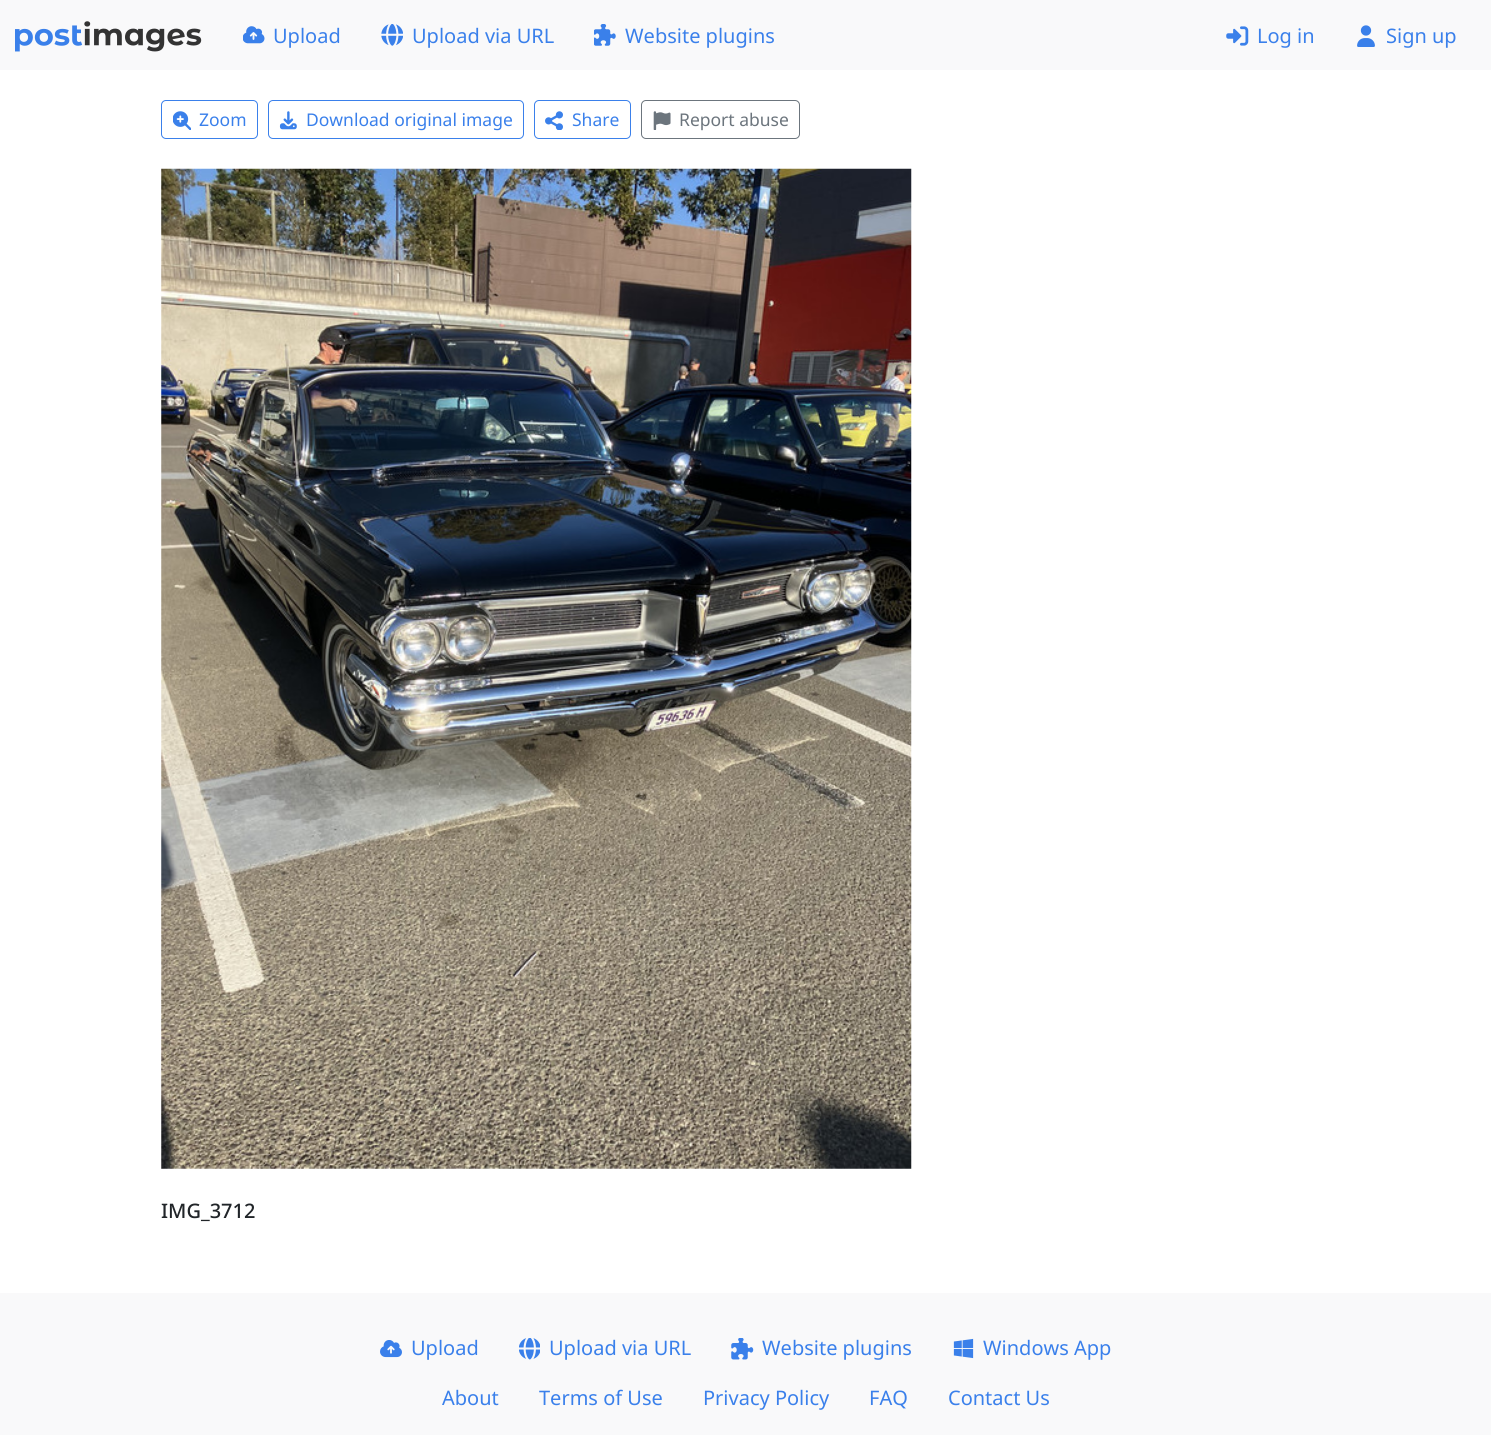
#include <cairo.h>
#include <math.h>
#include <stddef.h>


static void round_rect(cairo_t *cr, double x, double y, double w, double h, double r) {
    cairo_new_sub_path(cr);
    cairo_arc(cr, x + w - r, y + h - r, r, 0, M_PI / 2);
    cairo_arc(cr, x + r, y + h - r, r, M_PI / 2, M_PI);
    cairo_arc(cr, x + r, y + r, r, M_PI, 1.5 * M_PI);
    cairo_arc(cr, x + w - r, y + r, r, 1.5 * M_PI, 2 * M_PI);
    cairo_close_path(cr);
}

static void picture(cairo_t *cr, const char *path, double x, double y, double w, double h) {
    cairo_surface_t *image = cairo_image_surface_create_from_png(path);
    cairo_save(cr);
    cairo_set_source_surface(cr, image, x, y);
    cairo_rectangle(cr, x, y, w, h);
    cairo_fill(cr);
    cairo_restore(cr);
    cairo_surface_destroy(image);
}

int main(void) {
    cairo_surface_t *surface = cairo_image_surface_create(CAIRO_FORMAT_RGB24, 1491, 1435);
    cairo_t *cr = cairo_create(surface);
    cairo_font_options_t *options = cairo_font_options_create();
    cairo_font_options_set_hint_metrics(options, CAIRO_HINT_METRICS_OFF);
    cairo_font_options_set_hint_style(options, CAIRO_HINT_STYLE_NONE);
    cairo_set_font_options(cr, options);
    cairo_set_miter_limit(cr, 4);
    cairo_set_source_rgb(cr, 1, 1, 1);
    cairo_paint(cr);
    cairo_set_source_rgb(cr, 0.973, 0.976, 0.98);
    cairo_rectangle(cr, 0, 0, 1491, 70);
    cairo_fill(cr);
    picture(cr, "img1.png", 15, 21, 187, 31);
    picture(cr, "img2.png", 243, 26, 22, 18);
    cairo_select_font_face(cr, "Noto Sans", CAIRO_FONT_SLANT_NORMAL, CAIRO_FONT_WEIGHT_NORMAL);
    cairo_set_font_size(cr, 20);
    cairo_set_source_rgb(cr, 0.227, 0.502, 0.918);
    cairo_move_to(cr, 273, 43);
    cairo_show_text(cr, "Upload");
    picture(cr, "img3.png", 381, 24, 22, 22);
    cairo_move_to(cr, 412, 43);
    cairo_show_text(cr, "Upload via URL");
    picture(cr, "img4.png", 594, 24, 22, 22);
    cairo_move_to(cr, 625, 43);
    cairo_show_text(cr, "Website plugins");
    picture(cr, "img5.png", 1226, 26, 23, 20);
    cairo_move_to(cr, 1257, 43);
    cairo_show_text(cr, "Log in");
    picture(cr, "img6.png", 1357, 25, 18, 22);
    cairo_move_to(cr, 1386, 43);
    cairo_show_text(cr, "Sign up");
    round_rect(cr, 161.5, 100.5, 96, 38, 4.5);
    cairo_set_line_width(cr, 1);
    cairo_stroke(cr);
    picture(cr, "img7.png", 173, 111, 18, 19);
    cairo_set_font_size(cr, 17.5);
    cairo_move_to(cr, 199, 126);
    cairo_show_text(cr, "Zoom");
    round_rect(cr, 268.5, 100.5, 255, 38, 4.5);
    cairo_stroke(cr);
    picture(cr, "img8.png", 279, 111, 18, 19);
    cairo_move_to(cr, 306, 126);
    cairo_show_text(cr, "Download original image");
    round_rect(cr, 534.5, 100.5, 96, 38, 4.5);
    cairo_stroke(cr);
    picture(cr, "img9.png", 545, 111, 18, 19);
    cairo_move_to(cr, 572, 126);
    cairo_show_text(cr, "Share");
    round_rect(cr, 641.5, 100.5, 158, 38, 4.5);
    cairo_set_source_rgb(cr, 0.424, 0.459, 0.49);
    cairo_stroke(cr);
    picture(cr, "img10.png", 653, 111, 18, 19);
    cairo_move_to(cr, 679, 126);
    cairo_show_text(cr, "Report abuse");
    picture(cr, "img11.png", 161, 168, 751, 1001);
    cairo_select_font_face(cr, "Noto Sans Medium", CAIRO_FONT_SLANT_NORMAL, CAIRO_FONT_WEIGHT_NORMAL);
    cairo_set_font_size(cr, 20);
    cairo_set_source_rgb(cr, 0.129, 0.145, 0.161);
    cairo_move_to(cr, 161, 1218);
    cairo_show_text(cr, "IMG_3712");
    cairo_set_source_rgb(cr, 0.973, 0.976, 0.98);
    cairo_rectangle(cr, 0, 1293, 1491, 142);
    cairo_fill(cr);
    picture(cr, "img12.png", 380, 1340, 22, 18);
    cairo_select_font_face(cr, "Noto Sans", CAIRO_FONT_SLANT_NORMAL, CAIRO_FONT_WEIGHT_NORMAL);
    cairo_set_source_rgb(cr, 0.227, 0.502, 0.918);
    cairo_move_to(cr, 411, 1355);
    cairo_show_text(cr, "Upload");
    picture(cr, "img13.png", 519, 1338, 21, 22);
    cairo_move_to(cr, 549, 1355);
    cairo_show_text(cr, "Upload via URL");
    picture(cr, "img14.png", 731, 1338, 23, 22);
    cairo_move_to(cr, 762, 1355);
    cairo_show_text(cr, "Website plugins");
    picture(cr, "img15.png", 953, 1338, 21, 21);
    cairo_move_to(cr, 983, 1355);
    cairo_show_text(cr, "Windows App");
    cairo_move_to(cr, 442, 1405);
    cairo_show_text(cr, "About");
    cairo_move_to(cr, 539, 1405);
    cairo_show_text(cr, "Terms of Use");
    cairo_move_to(cr, 703, 1405);
    cairo_show_text(cr, "Privacy Policy");
    cairo_move_to(cr, 869, 1405);
    cairo_show_text(cr, "FAQ");
    cairo_move_to(cr, 948, 1405);
    cairo_show_text(cr, "Contact Us");
    cairo_surface_write_to_png(surface, "page.png");
    cairo_font_options_destroy(options);
    cairo_destroy(cr);
    cairo_surface_destroy(surface);
    return 0;
}
